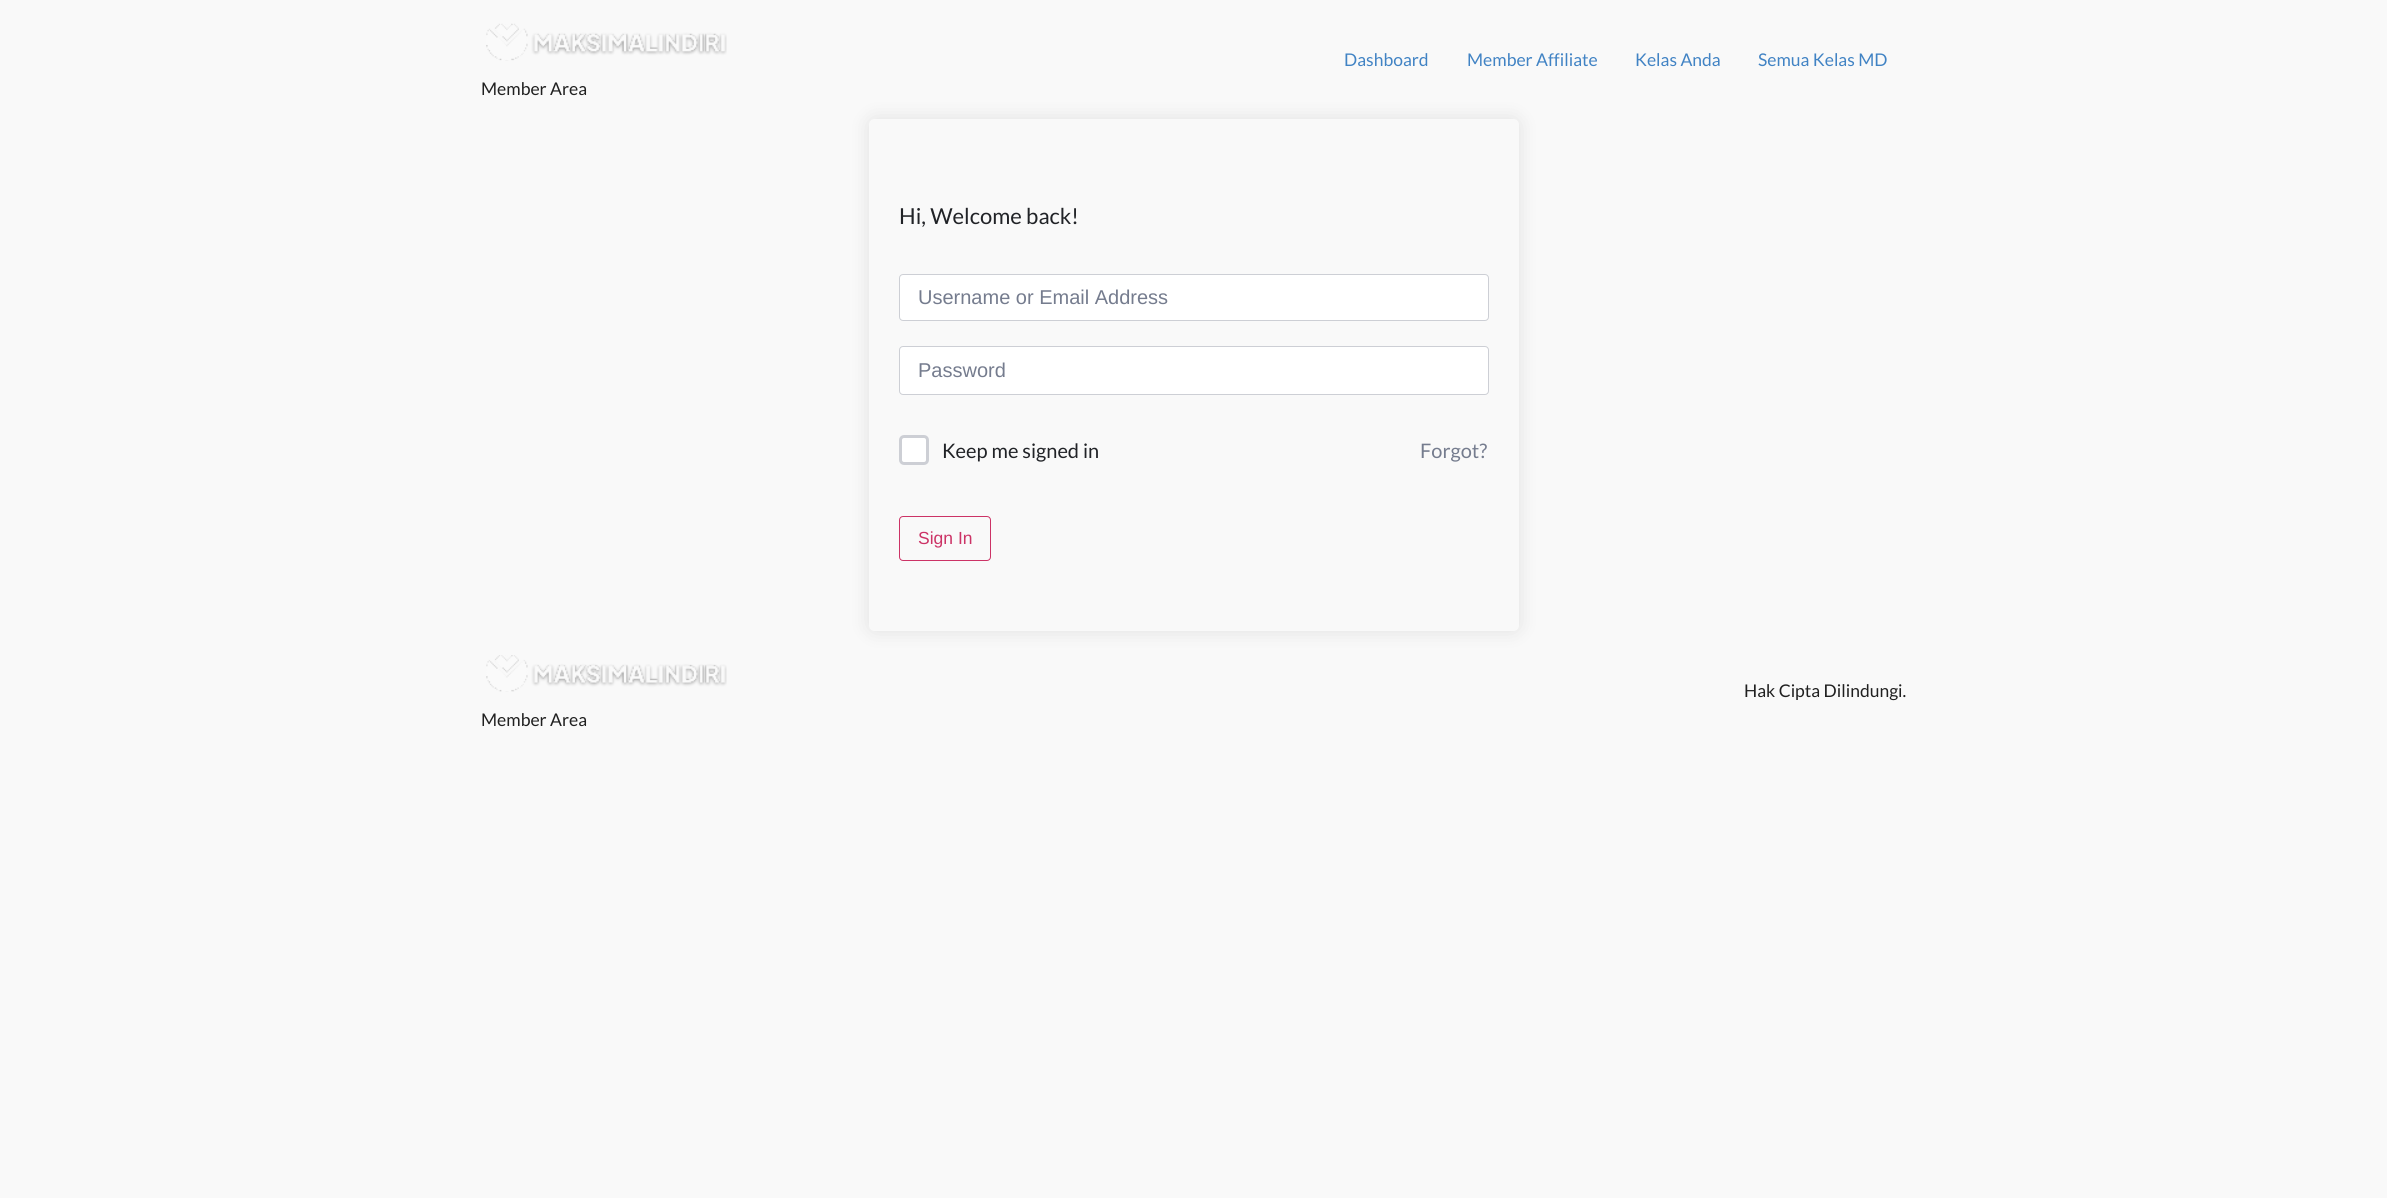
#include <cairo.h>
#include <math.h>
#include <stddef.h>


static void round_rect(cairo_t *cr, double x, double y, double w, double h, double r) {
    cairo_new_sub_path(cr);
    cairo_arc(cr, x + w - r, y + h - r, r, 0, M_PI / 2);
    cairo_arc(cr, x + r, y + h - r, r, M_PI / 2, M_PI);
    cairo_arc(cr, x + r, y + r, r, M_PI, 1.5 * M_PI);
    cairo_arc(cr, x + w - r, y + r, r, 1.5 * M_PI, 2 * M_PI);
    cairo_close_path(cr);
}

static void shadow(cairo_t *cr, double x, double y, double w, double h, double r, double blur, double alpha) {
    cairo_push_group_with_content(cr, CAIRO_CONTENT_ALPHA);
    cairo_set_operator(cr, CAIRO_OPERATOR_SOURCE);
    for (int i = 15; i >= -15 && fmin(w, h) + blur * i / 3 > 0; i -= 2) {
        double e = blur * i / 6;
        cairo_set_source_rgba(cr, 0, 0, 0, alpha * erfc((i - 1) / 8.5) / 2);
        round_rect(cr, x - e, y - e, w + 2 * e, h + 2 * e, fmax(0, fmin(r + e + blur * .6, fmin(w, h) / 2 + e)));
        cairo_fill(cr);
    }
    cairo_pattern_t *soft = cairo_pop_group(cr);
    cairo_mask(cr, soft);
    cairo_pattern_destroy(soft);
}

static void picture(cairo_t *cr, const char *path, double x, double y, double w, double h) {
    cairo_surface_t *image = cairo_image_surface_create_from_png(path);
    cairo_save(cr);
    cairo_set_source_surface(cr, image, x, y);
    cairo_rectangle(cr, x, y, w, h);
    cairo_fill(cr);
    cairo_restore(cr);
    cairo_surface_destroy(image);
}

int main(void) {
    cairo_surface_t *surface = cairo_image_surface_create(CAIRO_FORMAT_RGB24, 2387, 1198);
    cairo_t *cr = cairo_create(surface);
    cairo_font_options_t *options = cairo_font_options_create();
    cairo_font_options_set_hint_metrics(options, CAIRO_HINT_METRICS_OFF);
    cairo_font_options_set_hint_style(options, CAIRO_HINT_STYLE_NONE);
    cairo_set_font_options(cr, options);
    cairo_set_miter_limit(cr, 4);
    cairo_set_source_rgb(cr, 0.973, 0.973, 0.973);
    cairo_paint(cr);
    cairo_select_font_face(cr, "Lato", CAIRO_FONT_SLANT_NORMAL, CAIRO_FONT_WEIGHT_NORMAL);
    cairo_set_font_size(cr, 17.5);
    cairo_set_source_rgb(cr, 0.255, 0.514, 0.769);
    cairo_move_to(cr, 1344, 66);
    cairo_show_text(cr, "Dashboard");
    cairo_move_to(cr, 1467, 66);
    cairo_show_text(cr, "Member Affiliate");
    cairo_move_to(cr, 1635, 66);
    cairo_show_text(cr, "Kelas Anda");
    cairo_move_to(cr, 1758, 66);
    cairo_show_text(cr, "Semua Kelas MD");
    picture(cr, "img1.png", 486, 23, 241, 38);
    cairo_set_source_rgb(cr, 0.125, 0.125, 0.125);
    cairo_move_to(cr, 481, 95);
    cairo_show_text(cr, "Member Area");
    cairo_save(cr);
    cairo_set_fill_rule(cr, CAIRO_FILL_RULE_EVEN_ODD);
    cairo_new_path(cr);
    cairo_move_to(cr, 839, 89);
    cairo_line_to(cr, 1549, 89);
    cairo_line_to(cr, 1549, 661);
    cairo_line_to(cr, 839, 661);
    cairo_close_path(cr);
    cairo_move_to(cr, 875, 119);
    cairo_line_to(cr, 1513, 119);
    cairo_curve_to(cr, 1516.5, 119, 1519, 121.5, 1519, 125);
    cairo_line_to(cr, 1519, 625);
    cairo_curve_to(cr, 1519, 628.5, 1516.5, 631, 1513, 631);
    cairo_line_to(cr, 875, 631);
    cairo_curve_to(cr, 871.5, 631, 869, 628.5, 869, 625);
    cairo_line_to(cr, 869, 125);
    cairo_curve_to(cr, 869, 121.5, 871.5, 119, 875, 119);
    cairo_close_path(cr);
    cairo_clip(cr);
    cairo_set_source_rgb(cr, 0, 0, 0);
    shadow(cr, 869, 119, 650, 512, 6, 9.5, 0.1);
    cairo_restore(cr);
    cairo_set_font_size(cr, 22);
    cairo_set_source_rgb(cr, 0.129, 0.137, 0.153);
    cairo_move_to(cr, 899, 224);
    cairo_show_text(cr, "Hi, Welcome back!");
    cairo_set_source_rgb(cr, 1, 1, 1);
    round_rect(cr, 899.5, 274.5, 589, 46, 3.5);
    cairo_fill_preserve(cr);
    cairo_set_source_rgb(cr, 0.804, 0.812, 0.835);
    cairo_set_line_width(cr, 1);
    cairo_stroke(cr);
    cairo_select_font_face(cr, "Liberation Sans", CAIRO_FONT_SLANT_NORMAL, CAIRO_FONT_WEIGHT_NORMAL);
    cairo_set_font_size(cr, 20);
    cairo_set_source_rgb(cr, 0.459, 0.486, 0.557);
    cairo_move_to(cr, 918, 304);
    cairo_show_text(cr, "Username or Email Address");
    cairo_set_source_rgb(cr, 1, 1, 1);
    round_rect(cr, 899.5, 346.5, 589, 48, 3.5);
    cairo_fill_preserve(cr);
    cairo_set_source_rgb(cr, 0.804, 0.812, 0.835);
    cairo_stroke(cr);
    cairo_set_source_rgb(cr, 0.459, 0.486, 0.557);
    cairo_move_to(cr, 918, 377);
    cairo_show_text(cr, "Password");
    cairo_set_source_rgb(cr, 1, 1, 1);
    round_rect(cr, 900.5, 436.5, 27, 27, 3.5);
    cairo_fill_preserve(cr);
    cairo_set_source_rgb(cr, 0.804, 0.812, 0.835);
    cairo_set_line_width(cr, 3);
    cairo_stroke(cr);
    cairo_select_font_face(cr, "Lato", CAIRO_FONT_SLANT_NORMAL, CAIRO_FONT_WEIGHT_NORMAL);
    cairo_set_source_rgb(cr, 0.129, 0.137, 0.153);
    cairo_move_to(cr, 942, 458);
    cairo_show_text(cr, "Keep me signed in");
    cairo_set_source_rgb(cr, 0.459, 0.486, 0.557);
    cairo_move_to(cr, 1420, 458);
    cairo_show_text(cr, "Forgot?");
    round_rect(cr, 899.5, 516.5, 91, 44, 3.5);
    cairo_set_source_rgb(cr, 0.8, 0.2, 0.4);
    cairo_set_line_width(cr, 1);
    cairo_stroke(cr);
    cairo_select_font_face(cr, "Liberation Sans", CAIRO_FONT_SLANT_NORMAL, CAIRO_FONT_WEIGHT_NORMAL);
    cairo_set_font_size(cr, 17.5);
    cairo_move_to(cr, 918, 544);
    cairo_show_text(cr, "Sign In");
    cairo_select_font_face(cr, "Lato", CAIRO_FONT_SLANT_NORMAL, CAIRO_FONT_WEIGHT_NORMAL);
    cairo_set_source_rgb(cr, 0.125, 0.125, 0.125);
    cairo_move_to(cr, 1744, 697);
    cairo_show_text(cr, "Hak Cipta Dilindungi.");
    picture(cr, "img2.png", 486, 655, 241, 37);
    cairo_move_to(cr, 481, 726);
    cairo_show_text(cr, "Member Area");
    cairo_surface_write_to_png(surface, "page.png");
    cairo_font_options_destroy(options);
    cairo_destroy(cr);
    cairo_surface_destroy(surface);
    return 0;
}
